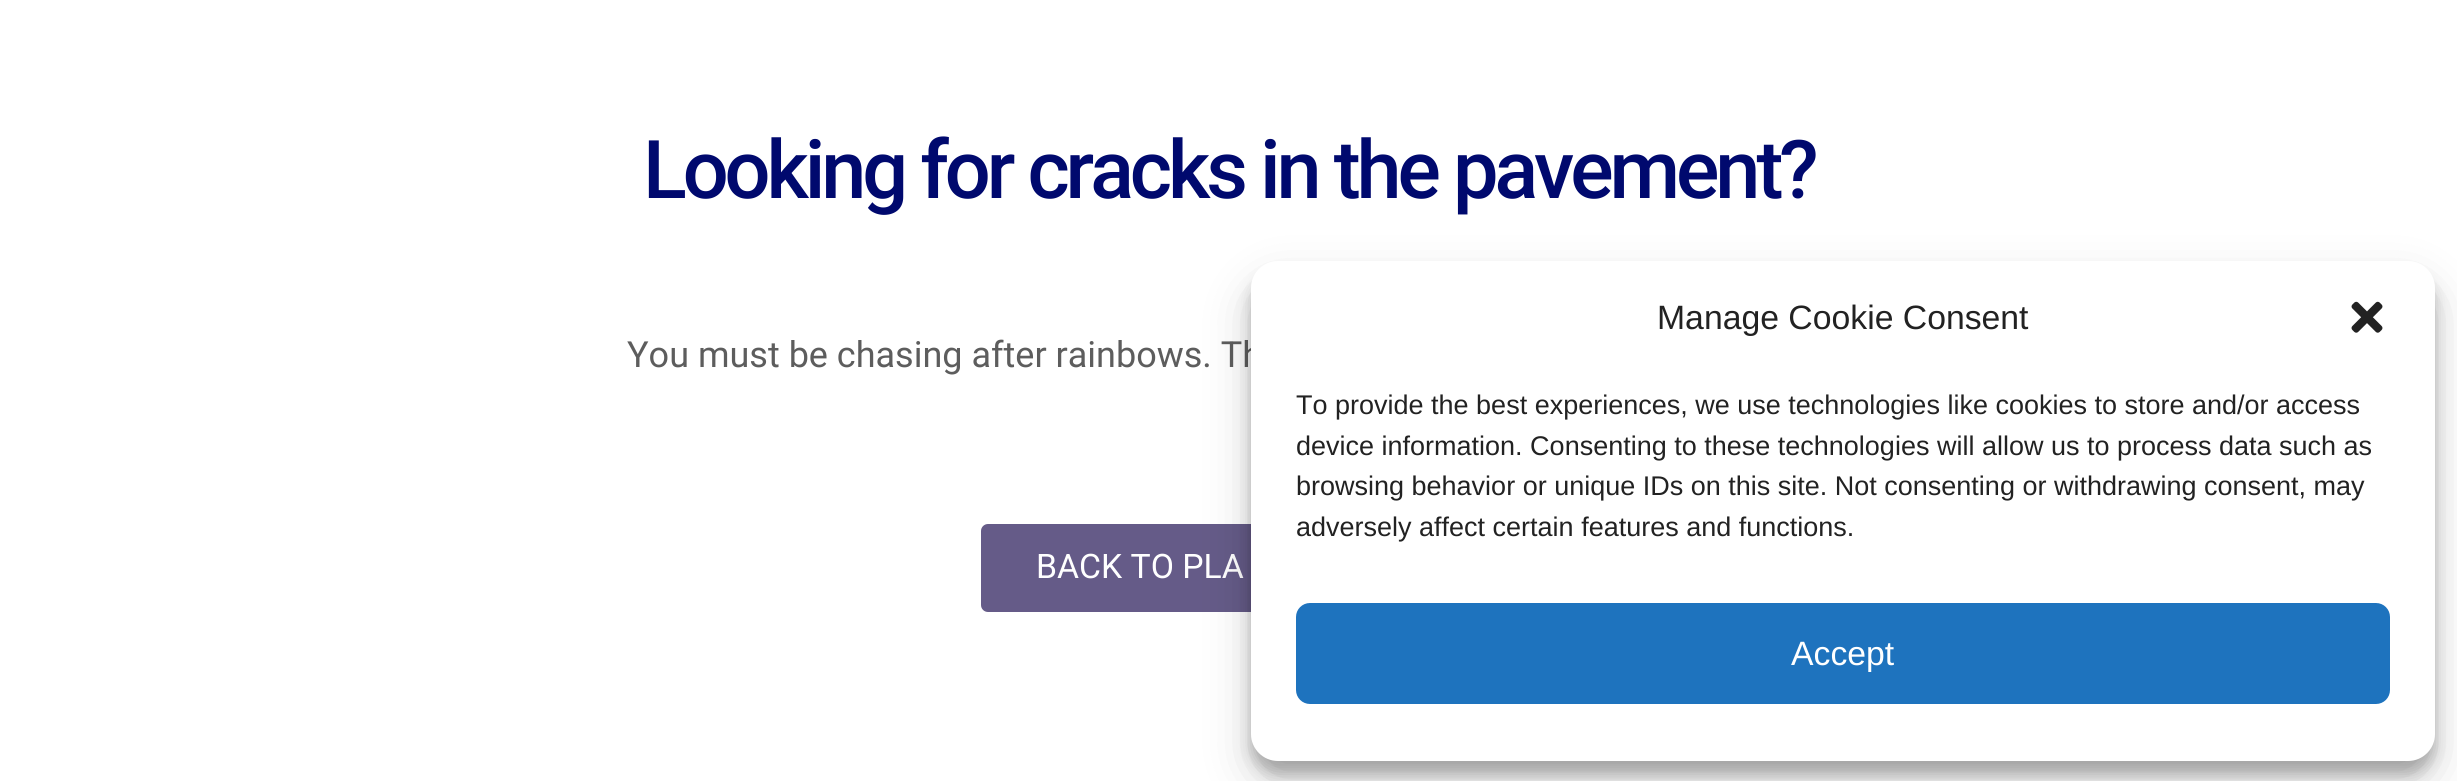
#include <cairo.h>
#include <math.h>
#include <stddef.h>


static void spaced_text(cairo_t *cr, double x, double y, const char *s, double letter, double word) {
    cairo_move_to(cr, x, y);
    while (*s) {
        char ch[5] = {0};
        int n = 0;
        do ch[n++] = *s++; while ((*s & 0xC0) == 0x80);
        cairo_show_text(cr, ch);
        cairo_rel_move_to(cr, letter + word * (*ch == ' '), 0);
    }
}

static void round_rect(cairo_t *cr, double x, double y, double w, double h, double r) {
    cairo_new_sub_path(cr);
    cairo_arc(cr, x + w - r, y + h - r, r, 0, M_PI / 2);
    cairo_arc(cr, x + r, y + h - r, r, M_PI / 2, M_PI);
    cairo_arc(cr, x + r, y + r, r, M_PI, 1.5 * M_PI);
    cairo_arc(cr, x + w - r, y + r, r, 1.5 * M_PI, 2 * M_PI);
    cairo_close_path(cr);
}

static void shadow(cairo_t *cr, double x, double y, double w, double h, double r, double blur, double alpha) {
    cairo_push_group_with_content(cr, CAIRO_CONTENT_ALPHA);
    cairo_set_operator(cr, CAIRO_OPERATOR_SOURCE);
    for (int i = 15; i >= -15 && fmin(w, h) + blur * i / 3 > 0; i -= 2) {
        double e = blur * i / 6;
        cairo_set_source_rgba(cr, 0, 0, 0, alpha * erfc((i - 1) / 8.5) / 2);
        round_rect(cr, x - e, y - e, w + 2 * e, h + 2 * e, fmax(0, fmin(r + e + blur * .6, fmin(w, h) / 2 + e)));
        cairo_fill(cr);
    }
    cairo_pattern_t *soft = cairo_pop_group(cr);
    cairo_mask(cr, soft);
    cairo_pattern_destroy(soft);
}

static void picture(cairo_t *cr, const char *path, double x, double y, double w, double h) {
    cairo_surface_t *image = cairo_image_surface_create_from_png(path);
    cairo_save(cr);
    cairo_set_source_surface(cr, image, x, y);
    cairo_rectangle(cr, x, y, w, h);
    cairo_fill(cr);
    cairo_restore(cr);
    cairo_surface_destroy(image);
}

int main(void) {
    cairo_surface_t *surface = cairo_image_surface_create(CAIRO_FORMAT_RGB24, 2457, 781);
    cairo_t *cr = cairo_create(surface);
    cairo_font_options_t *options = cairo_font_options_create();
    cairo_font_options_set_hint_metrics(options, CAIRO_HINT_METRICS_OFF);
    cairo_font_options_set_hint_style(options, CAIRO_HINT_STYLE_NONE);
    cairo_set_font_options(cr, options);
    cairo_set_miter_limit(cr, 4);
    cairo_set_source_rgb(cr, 1, 1, 1);
    cairo_paint(cr);
    cairo_select_font_face(cr, "Roboto Medium", CAIRO_FONT_SLANT_NORMAL, CAIRO_FONT_WEIGHT_NORMAL);
    cairo_set_font_size(cr, 81);
    cairo_set_source_rgb(cr, 0, 0.039, 0.431);
    spaced_text(cr, 643, 198, "Looking for cracks in the pavement?", -4.05, 0);
    cairo_select_font_face(cr, "Roboto", CAIRO_FONT_SLANT_NORMAL, CAIRO_FONT_WEIGHT_NORMAL);
    cairo_set_font_size(cr, 36);
    cairo_set_source_rgb(cr, 0.365, 0.365, 0.365);
    cairo_move_to(cr, 627, 367);
    cairo_show_text(cr, "You must be chasing after rainbows. Th");
    cairo_set_source_rgb(cr, 0.396, 0.357, 0.533);
    round_rect(cr, 981, 524, 495, 88, 7);
    cairo_fill(cr);
    cairo_set_font_size(cr, 33.75);
    cairo_set_source_rgb(cr, 1, 1, 1);
    cairo_move_to(cr, 1036, 578);
    cairo_show_text(cr, "BACK TO PLA");
    cairo_set_source_rgb(cr, 0, 0, 0);
    shadow(cr, 1251, 275, 1184, 499, 27, 7, 0.23);
    shadow(cr, 1251, 284, 1184, 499, 27, 22.5, 0.19);
    cairo_set_source_rgb(cr, 1, 1, 1);
    round_rect(cr, 1251, 261, 1184, 500, 27);
    cairo_fill(cr);
    cairo_select_font_face(cr, "Liberation Sans", CAIRO_FONT_SLANT_NORMAL, CAIRO_FONT_WEIGHT_NORMAL);
    cairo_set_source_rgb(cr, 0.133, 0.133, 0.133);
    cairo_move_to(cr, 1657, 329);
    cairo_show_text(cr, "Manage Cookie Consent");
    picture(cr, "img1.png", 2351, 301, 32, 32);
    cairo_set_font_size(cr, 27);
    cairo_move_to(cr, 1296, 414);
    cairo_show_text(cr, "To provide the best experiences, we use technologies like cookies to store and/or access");
    cairo_move_to(cr, 1296, 455);
    cairo_show_text(cr, "device information. Consenting to these technologies will allow us to process data such as");
    cairo_move_to(cr, 1296, 495);
    cairo_show_text(cr, "browsing behavior or unique IDs on this site. Not consenting or withdrawing consent, may");
    cairo_move_to(cr, 1296, 536);
    cairo_show_text(cr, "adversely affect certain features and functions.");
    cairo_set_source_rgb(cr, 0.118, 0.451, 0.745);
    round_rect(cr, 1297, 604, 1092, 99, 13);
    cairo_fill_preserve(cr);
    cairo_stroke(cr);
    cairo_set_font_size(cr, 33.75);
    cairo_set_source_rgb(cr, 1, 1, 1);
    cairo_move_to(cr, 1791, 665);
    cairo_show_text(cr, "Accept");
    cairo_surface_write_to_png(surface, "page.png");
    cairo_font_options_destroy(options);
    cairo_destroy(cr);
    cairo_surface_destroy(surface);
    return 0;
}
